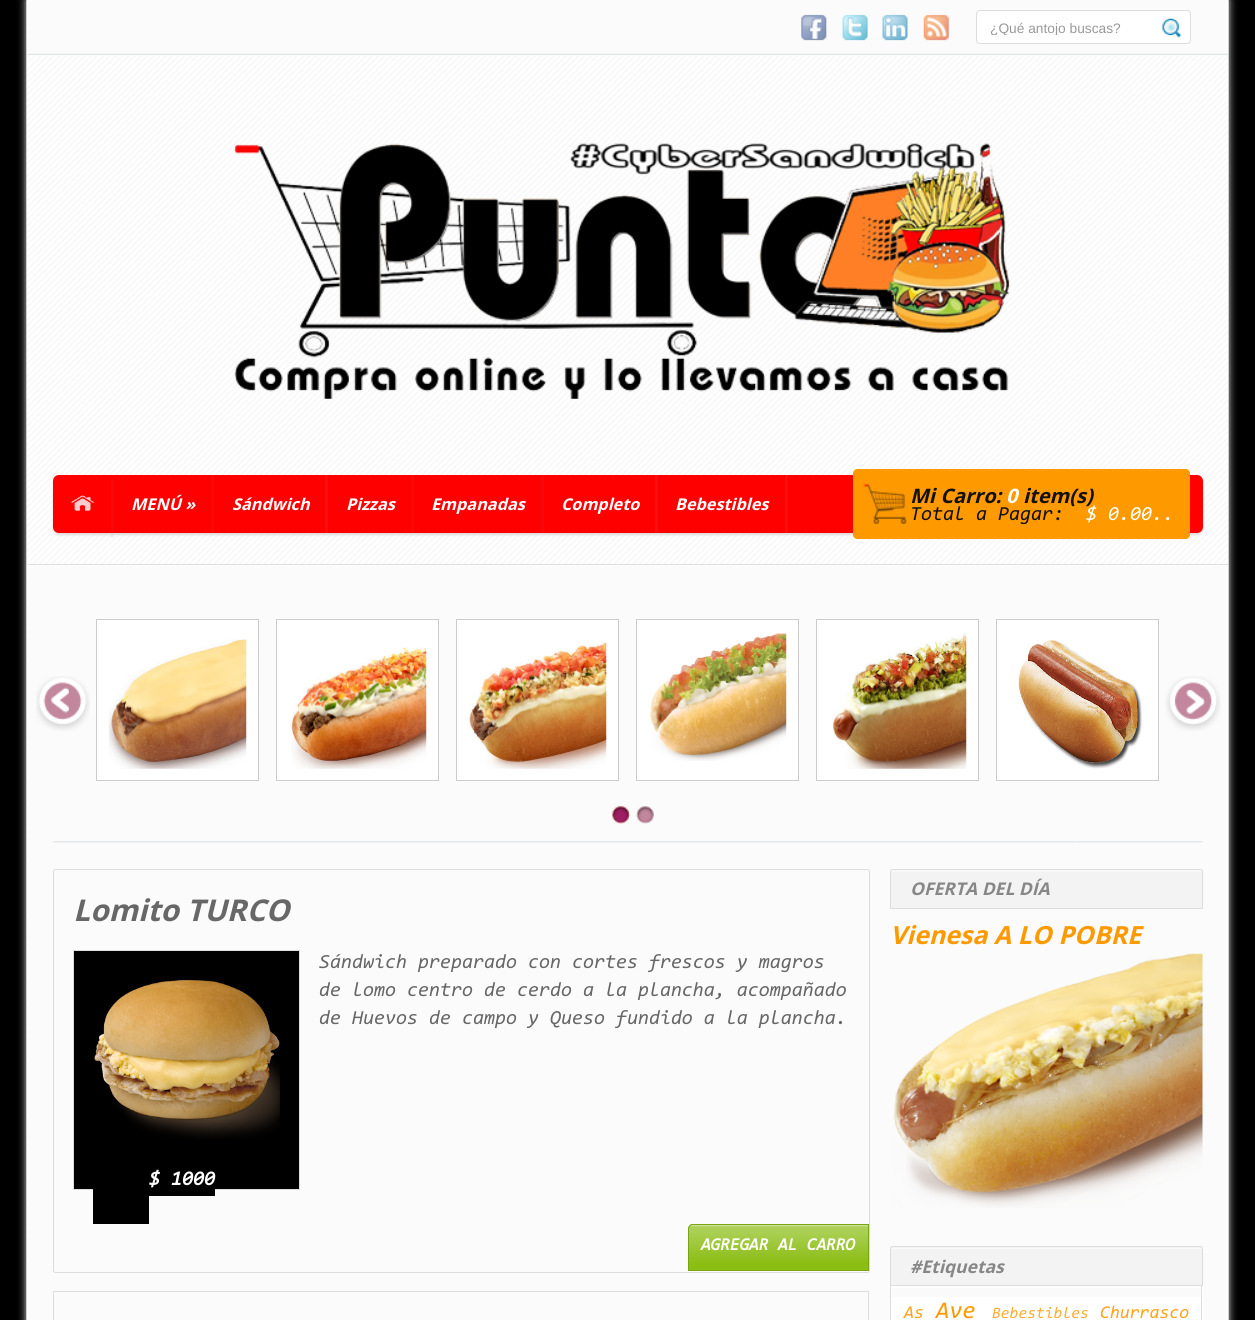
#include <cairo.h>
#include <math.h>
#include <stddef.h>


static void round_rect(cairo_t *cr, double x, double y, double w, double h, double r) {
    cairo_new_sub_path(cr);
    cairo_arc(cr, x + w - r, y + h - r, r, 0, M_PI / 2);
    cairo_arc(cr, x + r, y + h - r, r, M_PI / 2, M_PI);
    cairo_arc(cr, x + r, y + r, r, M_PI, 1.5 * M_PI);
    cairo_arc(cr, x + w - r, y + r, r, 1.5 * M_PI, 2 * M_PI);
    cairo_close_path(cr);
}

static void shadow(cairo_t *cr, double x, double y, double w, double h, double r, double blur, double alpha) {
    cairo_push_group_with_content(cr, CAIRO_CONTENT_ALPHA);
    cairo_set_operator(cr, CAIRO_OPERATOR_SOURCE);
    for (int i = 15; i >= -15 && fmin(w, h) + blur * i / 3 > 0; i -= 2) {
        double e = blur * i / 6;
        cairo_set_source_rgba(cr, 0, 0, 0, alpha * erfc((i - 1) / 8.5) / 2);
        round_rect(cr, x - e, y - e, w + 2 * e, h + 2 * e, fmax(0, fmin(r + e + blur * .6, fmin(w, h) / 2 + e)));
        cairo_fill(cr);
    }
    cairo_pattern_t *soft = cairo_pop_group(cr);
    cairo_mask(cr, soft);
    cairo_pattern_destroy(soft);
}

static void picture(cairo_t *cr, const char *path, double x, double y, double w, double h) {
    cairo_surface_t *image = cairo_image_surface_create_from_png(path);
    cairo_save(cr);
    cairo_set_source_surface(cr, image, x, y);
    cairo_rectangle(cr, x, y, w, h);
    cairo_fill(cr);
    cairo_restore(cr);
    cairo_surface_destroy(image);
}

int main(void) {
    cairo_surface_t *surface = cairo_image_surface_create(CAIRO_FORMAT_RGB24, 1255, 1320);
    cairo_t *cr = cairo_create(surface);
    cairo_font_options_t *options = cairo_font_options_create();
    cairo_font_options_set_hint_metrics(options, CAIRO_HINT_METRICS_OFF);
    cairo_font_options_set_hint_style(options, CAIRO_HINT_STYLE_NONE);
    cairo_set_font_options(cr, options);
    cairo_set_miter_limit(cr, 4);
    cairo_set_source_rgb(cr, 0, 0, 0);
    cairo_paint(cr);
    cairo_set_source_rgb(cr, 0.8, 0.8, 0.8);
    shadow(cr, 26, 0, 1203, 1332, 0, 4, 1);
    picture(cr, "img1.png", 27, 0, 1201, 1320);
    cairo_set_source_rgb(cr, 0.8, 0.8, 0.8);
    cairo_rectangle(cr, 1228, 0, 1, 1320);
    cairo_fill(cr);
    cairo_rectangle(cr, 26, 0, 1, 1320);
    cairo_fill(cr);
    cairo_set_source_rgb(cr, 0.984, 0.984, 0.984);
    cairo_rectangle(cr, 28, 0, 1200, 56);
    cairo_fill(cr);
    picture(cr, "img2.png", 27, 53, 1201, 3);
    picture(cr, "img3.png", 801, 14, 26, 27);
    picture(cr, "img4.png", 842, 14, 28, 27);
    picture(cr, "img5.png", 881, 14, 29, 27);
    picture(cr, "img6.png", 923, 14, 26, 27);
    cairo_set_source_rgb(cr, 1, 1, 1);
    round_rect(cr, 976.5, 10.5, 214, 33, 3.5);
    cairo_fill_preserve(cr);
    cairo_set_source_rgb(cr, 0.867, 0.867, 0.867);
    cairo_set_line_width(cr, 1);
    cairo_stroke(cr);
    cairo_save(cr);
    cairo_rectangle(cr, 990, 20, 138, 15);
    cairo_clip(cr);
    cairo_select_font_face(cr, "Liberation Sans", CAIRO_FONT_SLANT_NORMAL, CAIRO_FONT_WEIGHT_NORMAL);
    cairo_set_font_size(cr, 13.75);
    cairo_set_source_rgb(cr, 0.6, 0.6, 0.6);
    cairo_move_to(cr, 990, 33);
    cairo_show_text(cr, "¿Qué antojo buscas?");
    cairo_restore(cr);
    picture(cr, "img7.png", 1162, 18, 20, 20);
    cairo_rectangle(cr, 28, 564, 1200, 1);
    cairo_fill(cr);
    picture(cr, "img8.png", 234, 143, 776, 256);
    cairo_set_source_rgb(cr, 0.867, 0.867, 0.867);
    shadow(cr, 53, 478, 1150, 57, 6, 1, 1);
    cairo_set_source_rgb(cr, 1, 0, 0);
    round_rect(cr, 53, 475, 1150, 58, 6);
    cairo_fill(cr);
    cairo_set_source_rgba(cr, 0.502, 0.502, 0.502, 0.08);
    cairo_rectangle(cr, 111, 480, 3, 58);
    cairo_fill(cr);
    picture(cr, "img9.png", 71, 495, 24, 16);
    cairo_set_source_rgb(cr, 0.961, 0.039, 0.039);
    cairo_rectangle(cr, 211, 475, 3, 58);
    cairo_fill(cr);
    cairo_select_font_face(cr, "Open Sans", CAIRO_FONT_SLANT_ITALIC, CAIRO_FONT_WEIGHT_BOLD);
    cairo_set_font_size(cr, 16.25);
    cairo_set_source_rgb(cr, 1, 1, 1);
    cairo_move_to(cr, 131, 510);
    cairo_show_text(cr, "MENÚ »");
    cairo_set_source_rgb(cr, 0.973, 0.051, 0.051);
    cairo_rectangle(cr, 325, 475, 3, 58);
    cairo_fill(cr);
    cairo_set_source_rgb(cr, 1, 1, 1);
    cairo_move_to(cr, 232, 510);
    cairo_show_text(cr, "Sándwich");
    cairo_set_source_rgb(cr, 0.961, 0.039, 0.039);
    cairo_rectangle(cr, 411, 475, 3, 58);
    cairo_fill(cr);
    cairo_set_source_rgb(cr, 1, 1, 1);
    cairo_move_to(cr, 346, 510);
    cairo_show_text(cr, "Pizzas");
    cairo_set_source_rgb(cr, 0.961, 0.039, 0.039);
    cairo_rectangle(cr, 541, 475, 3, 58);
    cairo_fill(cr);
    cairo_set_source_rgb(cr, 1, 1, 1);
    cairo_move_to(cr, 431, 510);
    cairo_show_text(cr, "Empanadas");
    cairo_set_source_rgb(cr, 0.973, 0.051, 0.051);
    cairo_rectangle(cr, 655, 475, 3, 58);
    cairo_fill(cr);
    cairo_set_source_rgb(cr, 1, 1, 1);
    cairo_move_to(cr, 561, 510);
    cairo_show_text(cr, "Completo");
    cairo_set_source_rgb(cr, 0.973, 0.051, 0.051);
    cairo_rectangle(cr, 785, 475, 3, 58);
    cairo_fill(cr);
    cairo_set_source_rgb(cr, 1, 1, 1);
    cairo_move_to(cr, 675, 510);
    cairo_show_text(cr, "Bebestibles");
    cairo_set_source_rgb(cr, 1, 0.6, 0);
    round_rect(cr, 853, 469, 337, 70, 5);
    cairo_fill(cr);
    picture(cr, "img10.png", 863, 483, 44, 41);
    round_rect(cr, 853.5, 469.5, 336, 69, 4.5);
    cairo_stroke(cr);
    cairo_set_font_size(cr, 20);
    cairo_set_source_rgb(cr, 0.067, 0.067, 0.067);
    cairo_move_to(cr, 910, 503);
    cairo_show_text(cr, "Mi Carro:");
    cairo_set_source_rgb(cr, 1, 1, 1);
    cairo_move_to(cr, 1006, 503);
    cairo_show_text(cr, "0");
    cairo_set_source_rgb(cr, 0.067, 0.067, 0.067);
    cairo_move_to(cr, 1023, 503);
    cairo_show_text(cr, "item(s)");
    cairo_select_font_face(cr, "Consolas", CAIRO_FONT_SLANT_ITALIC, CAIRO_FONT_WEIGHT_NORMAL);
    cairo_move_to(cr, 910, 520);
    cairo_show_text(cr, "Total a Pagar:");
    cairo_set_source_rgb(cr, 1, 1, 1);
    cairo_move_to(cr, 1086, 520);
    cairo_show_text(cr, "$ 0.00..");
    cairo_set_source_rgb(cr, 0.984, 0.984, 0.984);
    cairo_rectangle(cr, 28, 566, 1200, 754);
    cairo_fill(cr);
    cairo_set_source_rgb(cr, 1, 1, 1);
    cairo_rectangle(cr, 28, 565, 1200, 1);
    cairo_fill(cr);
    picture(cr, "img11.png", 52, 841, 1151, 2);
    picture(cr, "img12.png", 36, 676, 54, 55);
    cairo_rectangle(cr, 96.5, 619.5, 162, 161);
    cairo_fill_preserve(cr);
    cairo_set_source_rgb(cr, 0.8, 0.8, 0.8);
    cairo_stroke(cr);
    picture(cr, "img13.png", 108, 639, 139, 130);
    cairo_set_source_rgb(cr, 1, 1, 1);
    cairo_rectangle(cr, 276.5, 619.5, 162, 161);
    cairo_fill_preserve(cr);
    cairo_set_source_rgb(cr, 0.8, 0.8, 0.8);
    cairo_stroke(cr);
    picture(cr, "img14.png", 291, 647, 136, 122);
    cairo_set_source_rgb(cr, 1, 1, 1);
    cairo_rectangle(cr, 456.5, 619.5, 162, 161);
    cairo_fill_preserve(cr);
    cairo_set_source_rgb(cr, 0.8, 0.8, 0.8);
    cairo_stroke(cr);
    picture(cr, "img15.png", 469, 642, 138, 127);
    cairo_set_source_rgb(cr, 1, 1, 1);
    cairo_rectangle(cr, 636.5, 619.5, 162, 161);
    cairo_fill_preserve(cr);
    cairo_set_source_rgb(cr, 0.8, 0.8, 0.8);
    cairo_stroke(cr);
    picture(cr, "img16.png", 650, 633, 137, 128);
    cairo_set_source_rgb(cr, 1, 1, 1);
    cairo_rectangle(cr, 816.5, 619.5, 162, 161);
    cairo_fill_preserve(cr);
    cairo_set_source_rgb(cr, 0.8, 0.8, 0.8);
    cairo_stroke(cr);
    picture(cr, "img17.png", 832, 632, 135, 137);
    cairo_set_source_rgb(cr, 1, 1, 1);
    cairo_rectangle(cr, 996.5, 619.5, 162, 161);
    cairo_fill_preserve(cr);
    cairo_set_source_rgb(cr, 0.8, 0.8, 0.8);
    cairo_stroke(cr);
    picture(cr, "img18.png", 1018, 640, 124, 129);
    picture(cr, "img19.png", 1165, 676, 56, 55);
    picture(cr, "img20.png", 612, 806, 18, 18);
    picture(cr, "img21.png", 636, 806, 18, 18);
    round_rect(cr, 53.5, 869.5, 816, 403, 2);
    cairo_set_source_rgb(cr, 0.867, 0.867, 0.867);
    cairo_stroke(cr);
    cairo_select_font_face(cr, "Open Sans", CAIRO_FONT_SLANT_ITALIC, CAIRO_FONT_WEIGHT_BOLD);
    cairo_set_font_size(cr, 30);
    cairo_set_source_rgb(cr, 0.404, 0.404, 0.404);
    cairo_move_to(cr, 73, 921);
    cairo_show_text(cr, "Lomito TURCO");
    cairo_select_font_face(cr, "Consolas", CAIRO_FONT_SLANT_ITALIC, CAIRO_FONT_WEIGHT_NORMAL);
    cairo_set_font_size(cr, 20);
    cairo_move_to(cr, 319, 968);
    cairo_show_text(cr, "Sándwich preparado con cortes frescos y magros");
    cairo_move_to(cr, 319, 996);
    cairo_show_text(cr, "de lomo centro de cerdo a la plancha, acompañado");
    cairo_move_to(cr, 319, 1024);
    cairo_show_text(cr, "de Huevos de campo y Queso fundido a la plancha.");
    cairo_set_source_rgb(cr, 0, 0, 0);
    cairo_rectangle(cr, 73.5, 950.5, 226, 239);
    cairo_fill_preserve(cr);
    cairo_set_source_rgb(cr, 0.867, 0.867, 0.867);
    cairo_stroke(cr);
    picture(cr, "img22.png", 94, 980, 186, 159);
    cairo_select_font_face(cr, "Consolas", CAIRO_FONT_SLANT_ITALIC, CAIRO_FONT_WEIGHT_BOLD);
    cairo_set_source_rgb(cr, 1, 1, 1);
    cairo_move_to(cr, 149, 1185);
    cairo_show_text(cr, "$ 1000");
    cairo_set_source_rgb(cr, 0, 0, 0);
    cairo_rectangle(cr, 93, 1189, 122, 7);
    cairo_fill(cr);
    cairo_rectangle(cr, 93, 1196, 56, 28);
    cairo_fill(cr);
    cairo_set_source_rgb(cr, 0.545, 0.741, 0.075);
    cairo_new_path(cr);
    cairo_move_to(cr, 693, 1224);
    cairo_line_to(cr, 869, 1224);
    cairo_line_to(cr, 869, 1271);
    cairo_line_to(cr, 688, 1271);
    cairo_line_to(cr, 688, 1229);
    cairo_curve_to(cr, 688, 1226, 690, 1224, 693, 1224);
    cairo_close_path(cr);
    cairo_fill(cr);
    picture(cr, "img23.png", 688, 1225, 180, 37);
    cairo_new_path(cr);
    cairo_move_to(cr, 693, 1224.5);
    cairo_line_to(cr, 868.5, 1224.5);
    cairo_line_to(cr, 868.5, 1270.5);
    cairo_line_to(cr, 688.5, 1270.5);
    cairo_line_to(cr, 688.5, 1229);
    cairo_curve_to(cr, 688.5, 1226.5, 690.5, 1224.5, 693, 1224.5);
    cairo_close_path(cr);
    cairo_set_source_rgb(cr, 0.478, 0.647, 0.078);
    cairo_stroke(cr);
    cairo_set_font_size(cr, 17.5);
    cairo_set_source_rgb(cr, 1, 1, 1);
    cairo_move_to(cr, 701, 1250);
    cairo_show_text(cr, "AGREGAR AL CARRO");
    cairo_rectangle(cr, 53.5, 1291.5, 815, 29);
    cairo_set_source_rgb(cr, 0.867, 0.867, 0.867);
    cairo_stroke(cr);
    cairo_set_source_rgb(cr, 0.953, 0.953, 0.953);
    cairo_new_path(cr);
    cairo_move_to(cr, 892.5, 869);
    cairo_line_to(cr, 1200.5, 869);
    cairo_curve_to(cr, 1202, 869, 1203, 870, 1203, 871.5);
    cairo_line_to(cr, 1203, 909);
    cairo_line_to(cr, 890, 909);
    cairo_line_to(cr, 890, 871.5);
    cairo_curve_to(cr, 890, 870, 891, 869, 892.5, 869);
    cairo_close_path(cr);
    cairo_fill(cr);
    picture(cr, "img24.png", 890, 870, 312, 2);
    cairo_new_path(cr);
    cairo_move_to(cr, 892.5, 869.5);
    cairo_line_to(cr, 1200.5, 869.5);
    cairo_curve_to(cr, 1201.5, 869.5, 1202.5, 870.5, 1202.5, 871.5);
    cairo_line_to(cr, 1202.5, 908.5);
    cairo_line_to(cr, 890.5, 908.5);
    cairo_line_to(cr, 890.5, 871.5);
    cairo_curve_to(cr, 890.5, 870.5, 891.5, 869.5, 892.5, 869.5);
    cairo_close_path(cr);
    cairo_set_source_rgb(cr, 0.867, 0.867, 0.867);
    cairo_stroke(cr);
    cairo_select_font_face(cr, "Open Sans", CAIRO_FONT_SLANT_ITALIC, CAIRO_FONT_WEIGHT_BOLD);
    cairo_set_source_rgb(cr, 0.529, 0.529, 0.529);
    cairo_move_to(cr, 910, 895);
    cairo_show_text(cr, "OFERTA DEL DÍA");
    cairo_set_font_size(cr, 25);
    cairo_set_source_rgb(cr, 1, 0.6, 0);
    cairo_move_to(cr, 890, 944);
    cairo_show_text(cr, "Vienesa A LO POBRE");
    picture(cr, "img25.png", 893, 953, 310, 255);
    cairo_set_source_rgb(cr, 0.953, 0.953, 0.953);
    cairo_new_path(cr);
    cairo_move_to(cr, 892.5, 1246);
    cairo_line_to(cr, 1200.5, 1246);
    cairo_curve_to(cr, 1202, 1246, 1203, 1247, 1203, 1248.5);
    cairo_line_to(cr, 1203, 1286);
    cairo_line_to(cr, 890, 1286);
    cairo_line_to(cr, 890, 1248.5);
    cairo_curve_to(cr, 890, 1247, 891, 1246, 892.5, 1246);
    cairo_close_path(cr);
    cairo_fill(cr);
    picture(cr, "img26.png", 890, 1248, 312, 1);
    cairo_new_path(cr);
    cairo_move_to(cr, 892.5, 1246.5);
    cairo_line_to(cr, 1200.5, 1246.5);
    cairo_curve_to(cr, 1201.5, 1246.5, 1202.5, 1247.5, 1202.5, 1248.5);
    cairo_line_to(cr, 1202.5, 1285.5);
    cairo_line_to(cr, 890.5, 1285.5);
    cairo_line_to(cr, 890.5, 1248.5);
    cairo_curve_to(cr, 890.5, 1247.5, 891.5, 1246.5, 892.5, 1246.5);
    cairo_close_path(cr);
    cairo_set_source_rgb(cr, 0.867, 0.867, 0.867);
    cairo_stroke(cr);
    cairo_set_font_size(cr, 17.5);
    cairo_set_source_rgb(cr, 0.529, 0.529, 0.529);
    cairo_move_to(cr, 910, 1273);
    cairo_show_text(cr, "#Etiquetas");
    cairo_set_source_rgb(cr, 1, 1, 1);
    cairo_rectangle(cr, 891, 1286, 312, 34);
    cairo_fill(cr);
    cairo_set_source_rgb(cr, 0.98, 0.98, 0.98);
    cairo_rectangle(cr, 891, 1288, 310, 9);
    cairo_fill(cr);
    cairo_set_source_rgb(cr, 0.867, 0.867, 0.867);
    cairo_rectangle(cr, 1201, 1286, 1, 34);
    cairo_fill(cr);
    cairo_rectangle(cr, 890, 1286, 1, 34);
    cairo_fill(cr);
    cairo_select_font_face(cr, "Consolas", CAIRO_FONT_SLANT_ITALIC, CAIRO_FONT_WEIGHT_NORMAL);
    cairo_set_font_size(cr, 18);
    cairo_set_source_rgb(cr, 1, 0.639, 0.102);
    cairo_move_to(cr, 904, 1318);
    cairo_show_text(cr, "As");
    cairo_set_font_size(cr, 24);
    cairo_set_source_rgb(cr, 1, 0.6, 0);
    cairo_move_to(cr, 936, 1318);
    cairo_show_text(cr, "Ave");
    cairo_set_font_size(cr, 16);
    cairo_set_source_rgb(cr, 1, 0.678, 0.2);
    cairo_move_to(cr, 992, 1318);
    cairo_show_text(cr, "Bebestibles");
    cairo_set_font_size(cr, 18);
    cairo_set_source_rgb(cr, 1, 0.639, 0.102);
    cairo_move_to(cr, 1100, 1318);
    cairo_show_text(cr, "Churrasco");
    cairo_surface_write_to_png(surface, "page.png");
    cairo_font_options_destroy(options);
    cairo_destroy(cr);
    cairo_surface_destroy(surface);
    return 0;
}
